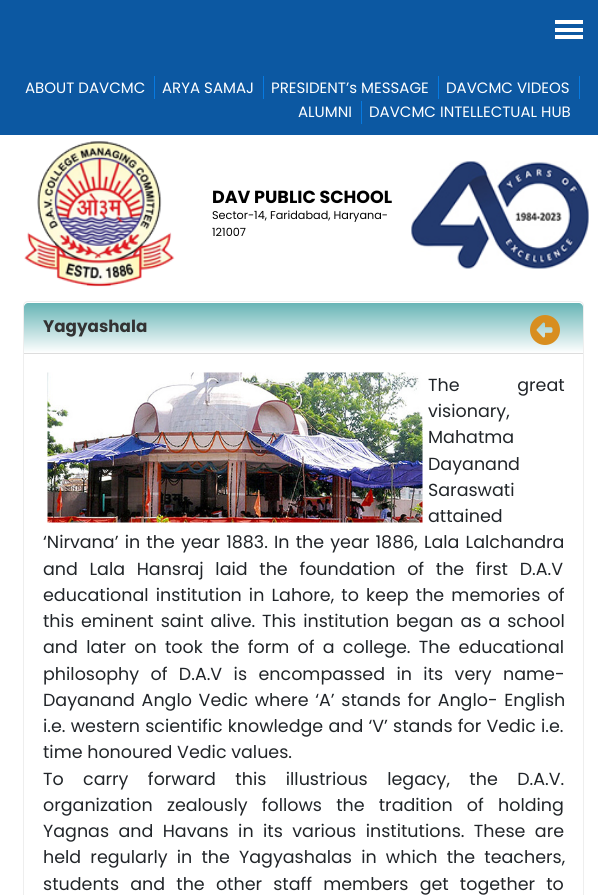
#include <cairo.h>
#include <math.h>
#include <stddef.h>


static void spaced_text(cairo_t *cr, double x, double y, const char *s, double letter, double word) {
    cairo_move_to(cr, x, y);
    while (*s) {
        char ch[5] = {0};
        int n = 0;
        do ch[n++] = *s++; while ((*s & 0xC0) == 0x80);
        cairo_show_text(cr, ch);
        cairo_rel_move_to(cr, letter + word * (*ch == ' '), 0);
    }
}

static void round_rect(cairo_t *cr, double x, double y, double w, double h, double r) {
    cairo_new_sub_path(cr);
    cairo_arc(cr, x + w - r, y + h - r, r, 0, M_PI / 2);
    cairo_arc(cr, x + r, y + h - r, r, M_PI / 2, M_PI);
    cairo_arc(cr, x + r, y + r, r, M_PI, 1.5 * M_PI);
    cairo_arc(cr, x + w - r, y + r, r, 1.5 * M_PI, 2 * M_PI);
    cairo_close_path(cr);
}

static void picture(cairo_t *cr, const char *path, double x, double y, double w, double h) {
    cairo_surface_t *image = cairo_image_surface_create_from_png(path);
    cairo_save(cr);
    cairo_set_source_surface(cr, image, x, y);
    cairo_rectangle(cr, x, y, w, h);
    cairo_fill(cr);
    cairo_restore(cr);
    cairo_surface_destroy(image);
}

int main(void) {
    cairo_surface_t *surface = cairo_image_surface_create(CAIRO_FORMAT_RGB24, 598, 895);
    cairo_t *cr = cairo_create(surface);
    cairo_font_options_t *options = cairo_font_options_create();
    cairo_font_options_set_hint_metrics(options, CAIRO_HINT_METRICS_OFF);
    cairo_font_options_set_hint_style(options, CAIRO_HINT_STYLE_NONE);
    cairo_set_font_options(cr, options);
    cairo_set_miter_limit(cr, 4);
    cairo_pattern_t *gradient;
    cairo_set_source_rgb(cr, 1, 1, 1);
    cairo_paint(cr);
    cairo_set_source_rgb(cr, 0.047, 0.345, 0.635);
    cairo_rectangle(cr, 0, 0, 598, 135);
    cairo_fill(cr);
    cairo_set_source_rgb(cr, 1, 1, 1);
    cairo_rectangle(cr, 555, 20, 28, 4);
    cairo_fill(cr);
    cairo_rectangle(cr, 555, 28, 28, 4);
    cairo_fill(cr);
    cairo_rectangle(cr, 555, 35, 28, 4);
    cairo_fill(cr);
    cairo_set_source_rgb(cr, 0.031, 0.478, 0.882);
    cairo_rectangle(cr, 154, 76, 1, 23);
    cairo_fill(cr);
    cairo_select_font_face(cr, "Poppins", CAIRO_FONT_SLANT_NORMAL, CAIRO_FONT_WEIGHT_NORMAL);
    cairo_set_font_size(cr, 15);
    cairo_set_source_rgb(cr, 1, 1, 1);
    cairo_move_to(cr, 25, 93);
    cairo_show_text(cr, "ABOUT DAVCMC");
    cairo_set_source_rgb(cr, 0.031, 0.478, 0.882);
    cairo_rectangle(cr, 263, 76, 1, 23);
    cairo_fill(cr);
    cairo_set_source_rgb(cr, 1, 1, 1);
    cairo_move_to(cr, 162, 93);
    cairo_show_text(cr, "ARYA SAMAJ");
    cairo_set_source_rgb(cr, 0.031, 0.478, 0.882);
    cairo_rectangle(cr, 438, 76, 1, 23);
    cairo_fill(cr);
    cairo_set_source_rgb(cr, 1, 1, 1);
    cairo_move_to(cr, 271, 93);
    cairo_show_text(cr, "PRESIDENT’s MESSAGE");
    cairo_set_source_rgb(cr, 0.031, 0.478, 0.882);
    cairo_rectangle(cr, 579, 76, 1, 23);
    cairo_fill(cr);
    cairo_set_source_rgb(cr, 1, 1, 1);
    cairo_move_to(cr, 446, 93);
    cairo_show_text(cr, "DAVCMC VIDEOS");
    cairo_set_source_rgb(cr, 0.031, 0.478, 0.882);
    cairo_rectangle(cr, 361, 101, 1, 23);
    cairo_fill(cr);
    cairo_set_source_rgb(cr, 1, 1, 1);
    cairo_move_to(cr, 298, 117);
    cairo_show_text(cr, "ALUMNI");
    cairo_move_to(cr, 369, 117);
    cairo_show_text(cr, "DAVCMC INTELLECTUAL HUB");
    picture(cr, "img1.png", 24, 141, 151, 146);
    cairo_select_font_face(cr, "Poppins", CAIRO_FONT_SLANT_NORMAL, CAIRO_FONT_WEIGHT_BOLD);
    cairo_set_font_size(cr, 17.5);
    cairo_set_source_rgb(cr, 0, 0, 0);
    cairo_move_to(cr, 212, 203);
    cairo_show_text(cr, "DAV PUBLIC SCHOOL");
    cairo_select_font_face(cr, "Poppins", CAIRO_FONT_SLANT_NORMAL, CAIRO_FONT_WEIGHT_NORMAL);
    cairo_set_font_size(cr, 11.25);
    cairo_move_to(cr, 212, 219);
    cairo_show_text(cr, "Sector-14, Faridabad, Haryana-");
    cairo_move_to(cr, 212, 236);
    cairo_show_text(cr, "121007");
    picture(cr, "img2.png", 411, 161, 178, 108);
    round_rect(cr, 23.5, 301.5, 560, 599, 4.5);
    cairo_set_source_rgb(cr, 0.933, 0.933, 0.933);
    cairo_set_line_width(cr, 1);
    cairo_stroke(cr);
    gradient = cairo_pattern_create_linear(303, 302, 303, 353);
    cairo_pattern_add_color_stop_rgba(gradient, 0, 0.392, 0.702, 0.706, 1);
    cairo_pattern_add_color_stop_rgba(gradient, 1, 1, 1, 1, 1);
    cairo_set_source(cr, gradient);
    cairo_pattern_destroy(gradient);
    cairo_new_path(cr);
    cairo_move_to(cr, 28, 303);
    cairo_line_to(cr, 579, 303);
    cairo_curve_to(cr, 581, 303, 583, 305, 583, 307);
    cairo_line_to(cr, 583, 353);
    cairo_line_to(cr, 24, 353);
    cairo_line_to(cr, 24, 307);
    cairo_curve_to(cr, 24, 305, 26, 303, 28, 303);
    cairo_close_path(cr);
    cairo_fill(cr);
    cairo_set_source_rgb(cr, 0.867, 0.867, 0.867);
    cairo_rectangle(cr, 24, 353, 559, 1);
    cairo_fill(cr);
    cairo_select_font_face(cr, "Poppins", CAIRO_FONT_SLANT_NORMAL, CAIRO_FONT_WEIGHT_BOLD);
    cairo_set_font_size(cr, 16.75);
    cairo_set_source_rgb(cr, 0.2, 0.2, 0.2);
    cairo_move_to(cr, 43, 332);
    cairo_show_text(cr, "Yagyashala");
    picture(cr, "img3.png", 530, 315, 30, 30);
    picture(cr, "img4.png", 47, 372, 376, 151);
    cairo_select_font_face(cr, "Poppins", CAIRO_FONT_SLANT_NORMAL, CAIRO_FONT_WEIGHT_NORMAL);
    cairo_set_font_size(cr, 17.5);
    cairo_set_source_rgb(cr, 0.129, 0.145, 0.161);
    spaced_text(cr, 428, 391, "The great", 0, 53);
    cairo_move_to(cr, 428, 417);
    cairo_show_text(cr, "visionary,");
    cairo_move_to(cr, 428, 443);
    cairo_show_text(cr, "Mahatma");
    cairo_move_to(cr, 428, 470);
    cairo_show_text(cr, "Dayanand");
    cairo_move_to(cr, 428, 496);
    cairo_show_text(cr, "Saraswati");
    cairo_move_to(cr, 428, 522);
    cairo_show_text(cr, "attained");
    spaced_text(cr, 43, 548, "‘Nirvana’ in the year 1883. In the year 1886, Lala Lalchandra", 0, 1.5);
    spaced_text(cr, 43, 575, "and Lala Hansraj laid the foundation of the first D.A.V", 0, 7);
    spaced_text(cr, 43, 601, "educational institution in Lahore, to keep the memories of", 0, 2.5);
    spaced_text(cr, 43, 627, "this eminent saint alive. This institution began as a school", 0, 2.25);
    spaced_text(cr, 43, 653, "and later on took the form of a college. The educational", 0, 3.6);
    spaced_text(cr, 43, 680, "philosophy of D.A.V is encompassed in its very name-", 0, 6.75);
    spaced_text(cr, 43, 706, "Dayanand Anglo Vedic where ‘A’ stands for Anglo- English", 0, 2);
    spaced_text(cr, 43, 732, "i.e. western scientific knowledge and ‘V’ stands for Vedic i.e.", 0, 0.5);
    cairo_move_to(cr, 43, 758);
    cairo_show_text(cr, "time honoured Vedic values.");
    spaced_text(cr, 43, 785, "To carry forward this illustrious legacy, the D.A.V.", 0, 14.75);
    spaced_text(cr, 43, 811, "organization zealously follows the tradition of holding", 0, 9.5);
    spaced_text(cr, 43, 837, "Yagnas and Havans in its various institutions. These are", 0, 4.75);
    spaced_text(cr, 43, 863, "held regularly in the Yagyashalas in which the teachers,", 0, 4.5);
    spaced_text(cr, 43, 890, "students and the other staff members get together to", 0, 6.5);
    cairo_surface_write_to_png(surface, "page.png");
    cairo_font_options_destroy(options);
    cairo_destroy(cr);
    cairo_surface_destroy(surface);
    return 0;
}
